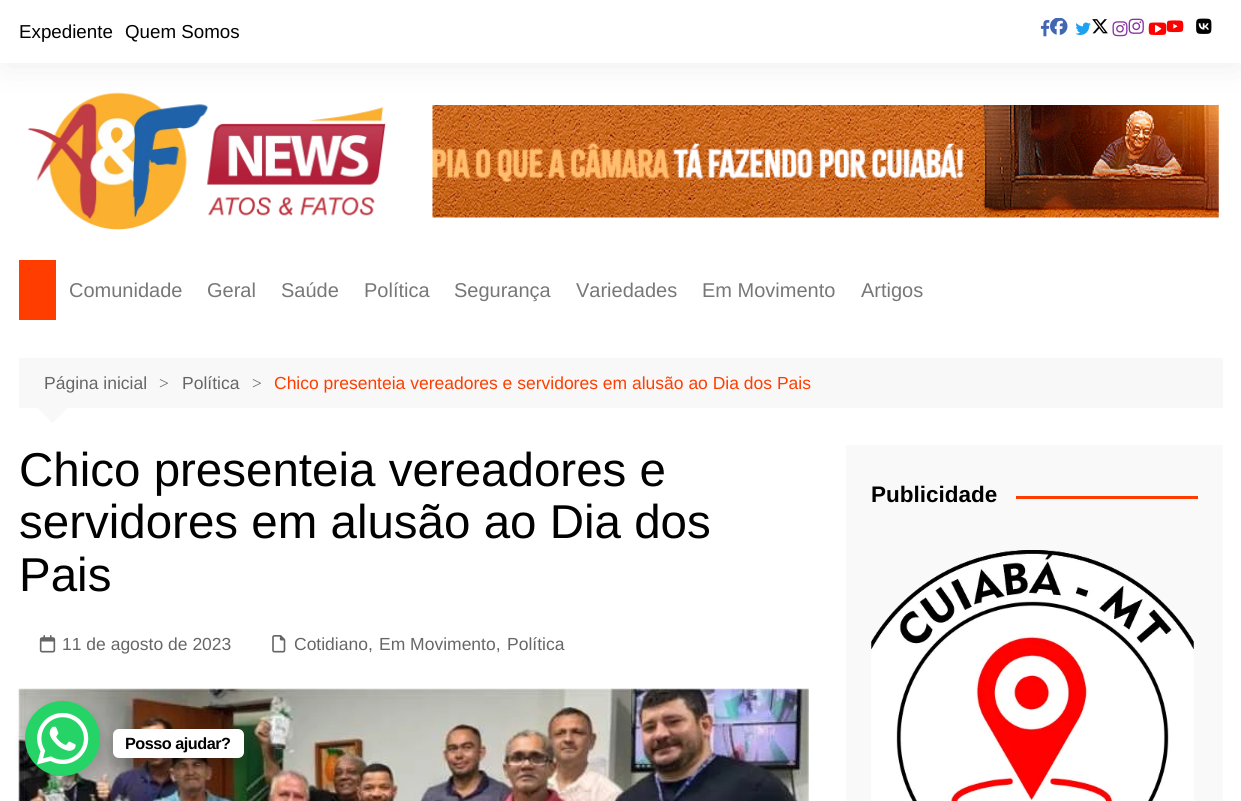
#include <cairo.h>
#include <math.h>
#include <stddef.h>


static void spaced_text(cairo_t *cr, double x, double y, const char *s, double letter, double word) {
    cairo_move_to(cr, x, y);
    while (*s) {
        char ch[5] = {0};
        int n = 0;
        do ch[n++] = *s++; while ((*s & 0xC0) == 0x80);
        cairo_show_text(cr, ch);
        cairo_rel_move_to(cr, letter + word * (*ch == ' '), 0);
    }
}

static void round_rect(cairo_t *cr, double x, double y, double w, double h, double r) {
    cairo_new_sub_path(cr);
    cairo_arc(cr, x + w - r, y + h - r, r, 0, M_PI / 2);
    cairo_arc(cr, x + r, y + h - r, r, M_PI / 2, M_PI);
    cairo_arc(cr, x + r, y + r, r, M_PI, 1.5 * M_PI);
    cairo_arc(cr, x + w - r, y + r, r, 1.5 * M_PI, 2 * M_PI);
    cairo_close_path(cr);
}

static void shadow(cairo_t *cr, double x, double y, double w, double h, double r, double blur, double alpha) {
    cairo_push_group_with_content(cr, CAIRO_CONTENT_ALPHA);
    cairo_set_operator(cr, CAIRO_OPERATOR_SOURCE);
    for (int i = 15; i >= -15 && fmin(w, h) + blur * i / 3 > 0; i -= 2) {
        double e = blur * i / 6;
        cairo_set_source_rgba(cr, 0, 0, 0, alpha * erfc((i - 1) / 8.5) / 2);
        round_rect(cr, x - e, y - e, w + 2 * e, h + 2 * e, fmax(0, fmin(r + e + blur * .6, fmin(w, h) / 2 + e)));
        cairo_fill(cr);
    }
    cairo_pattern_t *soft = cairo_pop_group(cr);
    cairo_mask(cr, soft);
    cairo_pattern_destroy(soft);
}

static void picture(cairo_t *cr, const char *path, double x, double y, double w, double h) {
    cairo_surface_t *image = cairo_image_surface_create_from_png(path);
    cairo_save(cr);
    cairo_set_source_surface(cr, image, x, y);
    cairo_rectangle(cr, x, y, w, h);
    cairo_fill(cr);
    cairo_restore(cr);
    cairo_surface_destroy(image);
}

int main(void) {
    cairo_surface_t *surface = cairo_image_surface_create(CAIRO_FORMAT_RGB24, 1241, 801);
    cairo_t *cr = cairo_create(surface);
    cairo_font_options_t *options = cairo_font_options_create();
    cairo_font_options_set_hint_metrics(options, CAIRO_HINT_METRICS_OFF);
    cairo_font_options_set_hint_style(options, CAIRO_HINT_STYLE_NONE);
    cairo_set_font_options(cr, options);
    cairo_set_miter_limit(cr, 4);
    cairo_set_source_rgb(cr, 1, 1, 1);
    cairo_paint(cr);
    cairo_set_source_rgb(cr, 0, 0, 0);
    shadow(cr, 6, 9, 1229, 50, 0, 19, 0.1);
    cairo_set_source_rgb(cr, 1, 1, 1);
    cairo_rectangle(cr, 0, 0, 1241, 63);
    cairo_fill(cr);
    cairo_select_font_face(cr, "Liberation Sans", CAIRO_FONT_SLANT_NORMAL, CAIRO_FONT_WEIGHT_NORMAL);
    cairo_set_font_size(cr, 18.75);
    cairo_set_source_rgb(cr, 0.004, 0.004, 0.004);
    cairo_move_to(cr, 19, 38);
    cairo_show_text(cr, "Expediente");
    cairo_move_to(cr, 125, 38);
    cairo_show_text(cr, "Quem Somos");
    picture(cr, "img1.png", 1040, 20, 10, 17);
    picture(cr, "img2.png", 1050, 18, 18, 17);
    picture(cr, "img3.png", 1075, 22, 16, 13);
    picture(cr, "img4.png", 1092, 19, 16, 15);
    picture(cr, "img5.png", 1112, 21, 16, 16);
    picture(cr, "img6.png", 1128, 18, 16, 16);
    picture(cr, "img7.png", 1148, 22, 19, 13);
    picture(cr, "img8.png", 1166, 20, 18, 13);
    picture(cr, "img9.png", 1196, 18, 16, 16);
    picture(cr, "img10.png", 27, 92, 359, 138);
    picture(cr, "img11.png", 432, 105, 787, 113);
    cairo_set_source_rgb(cr, 1, 0.239, 0);
    cairo_rectangle(cr, 19, 260, 37, 60);
    cairo_fill(cr);
    cairo_set_font_size(cr, 20);
    cairo_set_source_rgb(cr, 0.467, 0.467, 0.467);
    cairo_move_to(cr, 69, 297);
    cairo_show_text(cr, "Comunidade");
    cairo_move_to(cr, 207, 297);
    cairo_show_text(cr, "Geral");
    cairo_move_to(cr, 281, 297);
    cairo_show_text(cr, "Saúde");
    cairo_move_to(cr, 364, 297);
    cairo_show_text(cr, "Política");
    cairo_move_to(cr, 454, 297);
    cairo_show_text(cr, "Segurança");
    cairo_move_to(cr, 576, 297);
    cairo_show_text(cr, "Variedades");
    cairo_move_to(cr, 702, 297);
    cairo_show_text(cr, "Em Movimento");
    cairo_move_to(cr, 861, 297);
    cairo_show_text(cr, "Artigos");
    cairo_set_source_rgb(cr, 0.969, 0.969, 0.969);
    cairo_rectangle(cr, 19, 358, 1204, 50);
    cairo_fill(cr);
    cairo_set_font_size(cr, 17.5);
    cairo_set_source_rgb(cr, 0.4, 0.4, 0.4);
    cairo_move_to(cr, 44, 389);
    cairo_show_text(cr, "Página inicial");
    cairo_select_font_face(cr, "Liberation Serif", CAIRO_FONT_SLANT_NORMAL, CAIRO_FONT_WEIGHT_NORMAL);
    cairo_move_to(cr, 159, 389);
    cairo_show_text(cr, ">");
    cairo_select_font_face(cr, "Liberation Sans", CAIRO_FONT_SLANT_NORMAL, CAIRO_FONT_WEIGHT_NORMAL);
    cairo_move_to(cr, 182, 389);
    cairo_show_text(cr, "Política");
    cairo_select_font_face(cr, "Liberation Serif", CAIRO_FONT_SLANT_NORMAL, CAIRO_FONT_WEIGHT_NORMAL);
    cairo_move_to(cr, 252, 389);
    cairo_show_text(cr, ">");
    cairo_select_font_face(cr, "Liberation Sans", CAIRO_FONT_SLANT_NORMAL, CAIRO_FONT_WEIGHT_NORMAL);
    cairo_set_source_rgb(cr, 1, 0.239, 0);
    cairo_move_to(cr, 274, 389);
    cairo_show_text(cr, "Chico presenteia vereadores e servidores em alusão ao Dia dos Pais");
    cairo_set_source_rgb(cr, 0.969, 0.969, 0.969);
    cairo_new_path(cr);
    cairo_move_to(cr, 37.5, 407.5);
    cairo_line_to(cr, 67.5, 407.5);
    cairo_line_to(cr, 52.5, 423.5);
    cairo_close_path(cr);
    cairo_fill(cr);
    cairo_set_font_size(cr, 47.5);
    cairo_set_source_rgb(cr, 0.004, 0.004, 0.004);
    cairo_move_to(cr, 19, 486);
    cairo_show_text(cr, "Chico presenteia vereadores e");
    cairo_move_to(cr, 19, 538);
    cairo_show_text(cr, "servidores em alusão ao Dia dos");
    cairo_move_to(cr, 19, 591);
    cairo_show_text(cr, "Pais");
    picture(cr, "img12.png", 39, 635, 17, 18);
    cairo_set_font_size(cr, 17.5);
    cairo_set_source_rgb(cr, 0.4, 0.4, 0.4);
    cairo_move_to(cr, 62, 650);
    cairo_show_text(cr, "11 de agosto de 2023");
    picture(cr, "img13.png", 272, 635, 14, 18);
    cairo_move_to(cr, 294, 650);
    cairo_show_text(cr, "Cotidiano,");
    cairo_move_to(cr, 379, 650);
    cairo_show_text(cr, "Em Movimento,");
    cairo_move_to(cr, 507, 650);
    cairo_show_text(cr, "Política");
    picture(cr, "img14.png", 18, 688, 791, 113);
    cairo_set_source_rgb(cr, 0.973, 0.973, 0.973);
    cairo_rectangle(cr, 846, 445, 377, 356);
    cairo_fill(cr);
    cairo_select_font_face(cr, "Liberation Sans", CAIRO_FONT_SLANT_NORMAL, CAIRO_FONT_WEIGHT_BOLD);
    cairo_set_font_size(cr, 22.5);
    cairo_set_source_rgb(cr, 0.004, 0.004, 0.004);
    cairo_move_to(cr, 871, 502);
    cairo_show_text(cr, "Publicidade");
    cairo_set_source_rgb(cr, 1, 0.239, 0);
    cairo_rectangle(cr, 1016, 496, 182, 3);
    cairo_fill(cr);
    picture(cr, "img15.png", 871, 550, 323, 251);
    cairo_set_source_rgb(cr, 0, 0, 0);
    shadow(cr, 23, 706, 80, 80, 40, 5, 0.15);
    cairo_set_source_rgb(cr, 0.145, 0.827, 0.4);
    cairo_arc(cr, 62.5, 738.5, 37.5, 0, 2 * M_PI);
    cairo_fill(cr);
    picture(cr, "img16.png", 37, 712, 52, 53);
    cairo_set_source_rgb(cr, 0, 0, 0);
    shadow(cr, 110, 734, 136, 34, 9, 5, 0.15);
    cairo_set_source_rgb(cr, 1, 1, 1);
    round_rect(cr, 113, 729, 131, 29, 6);
    cairo_fill(cr);
    cairo_set_font_size(cr, 16.25);
    cairo_set_source_rgb(cr, 0.004, 0.004, 0.004);
    spaced_text(cr, 125, 749, "Posso ajudar?", -0.5, 0);
    cairo_surface_write_to_png(surface, "page.png");
    cairo_font_options_destroy(options);
    cairo_destroy(cr);
    cairo_surface_destroy(surface);
    return 0;
}
